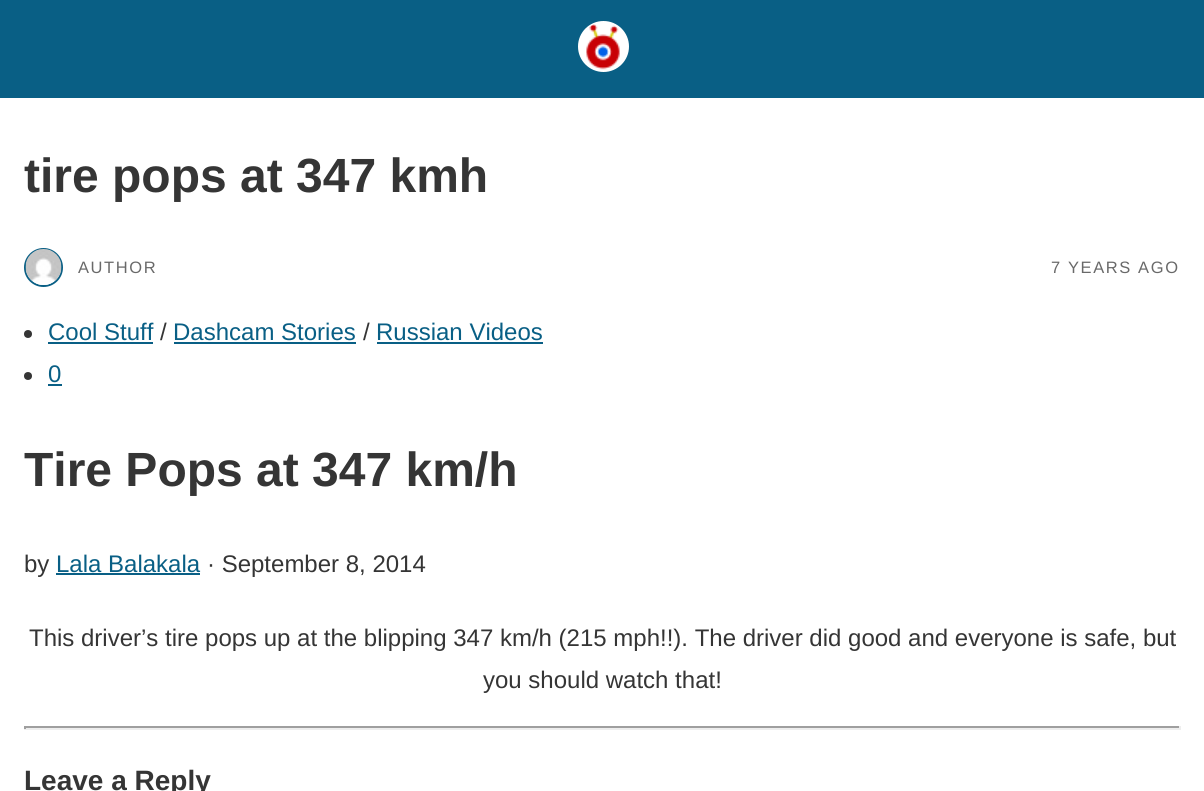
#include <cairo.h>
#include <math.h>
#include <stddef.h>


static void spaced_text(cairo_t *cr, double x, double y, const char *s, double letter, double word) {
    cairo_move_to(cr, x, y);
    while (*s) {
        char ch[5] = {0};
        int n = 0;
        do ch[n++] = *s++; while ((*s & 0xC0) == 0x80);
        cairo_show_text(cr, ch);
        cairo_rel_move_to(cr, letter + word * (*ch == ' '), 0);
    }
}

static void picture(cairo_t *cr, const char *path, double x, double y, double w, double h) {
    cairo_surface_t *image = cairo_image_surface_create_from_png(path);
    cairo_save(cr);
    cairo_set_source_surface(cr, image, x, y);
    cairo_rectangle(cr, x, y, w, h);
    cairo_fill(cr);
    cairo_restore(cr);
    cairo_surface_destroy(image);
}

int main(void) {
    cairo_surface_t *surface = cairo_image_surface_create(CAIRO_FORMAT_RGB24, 1204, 791);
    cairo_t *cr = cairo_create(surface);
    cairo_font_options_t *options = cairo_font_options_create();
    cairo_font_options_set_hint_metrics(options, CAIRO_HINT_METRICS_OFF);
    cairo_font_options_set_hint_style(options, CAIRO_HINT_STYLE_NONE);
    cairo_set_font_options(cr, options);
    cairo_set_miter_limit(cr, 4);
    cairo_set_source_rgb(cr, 1, 1, 1);
    cairo_paint(cr);
    cairo_set_source_rgb(cr, 0.039, 0.373, 0.522);
    cairo_rectangle(cr, 0, 0, 1204, 98);
    cairo_fill(cr);
    cairo_set_source_rgb(cr, 1, 1, 1);
    cairo_arc(cr, 603.5, 46.5, 24.5, 0, 2 * M_PI);
    cairo_fill_preserve(cr);
    cairo_stroke(cr);
    picture(cr, "img1.png", 586, 24, 34, 46);
    cairo_select_font_face(cr, "Liberation Sans", CAIRO_FONT_SLANT_NORMAL, CAIRO_FONT_WEIGHT_BOLD);
    cairo_set_font_size(cr, 48);
    cairo_set_source_rgb(cr, 0.208, 0.208, 0.208);
    cairo_move_to(cr, 24, 192);
    cairo_show_text(cr, "tire pops at 347 kmh");
    cairo_new_path(cr);
    cairo_arc(cr, 43.5, 267.5, 18.5, 0, 2 * M_PI);
    cairo_set_source_rgb(cr, 0.039, 0.373, 0.522);
    cairo_stroke(cr);
    picture(cr, "img2.png", 25, 249, 37, 36);
    cairo_select_font_face(cr, "Liberation Sans", CAIRO_FONT_SLANT_NORMAL, CAIRO_FONT_WEIGHT_NORMAL);
    cairo_set_font_size(cr, 16.5);
    cairo_set_source_rgb(cr, 0.412, 0.412, 0.412);
    spaced_text(cr, 78, 273, "AUTHOR", 1.6, 0);
    spaced_text(cr, 1051, 273, "7 YEARS AGO", 1.6, 0);
    cairo_set_source_rgb(cr, 0.208, 0.208, 0.208);
    cairo_new_path(cr);
    cairo_arc(cr, 28, 334, 4, 0, 2 * M_PI);
    cairo_fill(cr);
    cairo_set_font_size(cr, 24);
    cairo_set_source_rgb(cr, 0.039, 0.373, 0.522);
    cairo_move_to(cr, 48, 340);
    cairo_show_text(cr, "Cool Stuff");
    cairo_rectangle(cr, 48, 342, 105, 2);
    cairo_fill(cr);
    cairo_set_source_rgb(cr, 0.208, 0.208, 0.208);
    cairo_move_to(cr, 160, 340);
    cairo_show_text(cr, "/");
    cairo_set_source_rgb(cr, 0.039, 0.373, 0.522);
    cairo_move_to(cr, 173, 340);
    cairo_show_text(cr, "Dashcam Stories");
    cairo_rectangle(cr, 174, 342, 182, 2);
    cairo_fill(cr);
    cairo_set_source_rgb(cr, 0.208, 0.208, 0.208);
    cairo_move_to(cr, 363, 340);
    cairo_show_text(cr, "/");
    cairo_set_source_rgb(cr, 0.039, 0.373, 0.522);
    cairo_move_to(cr, 376, 340);
    cairo_show_text(cr, "Russian Videos");
    cairo_rectangle(cr, 377, 342, 166, 2);
    cairo_fill(cr);
    cairo_set_source_rgb(cr, 0.208, 0.208, 0.208);
    cairo_arc(cr, 28, 376, 4, 0, 2 * M_PI);
    cairo_fill(cr);
    cairo_set_source_rgb(cr, 0.039, 0.373, 0.522);
    cairo_move_to(cr, 48, 382);
    cairo_show_text(cr, "0");
    cairo_rectangle(cr, 48, 384, 14, 2);
    cairo_fill(cr);
    cairo_select_font_face(cr, "Liberation Sans", CAIRO_FONT_SLANT_NORMAL, CAIRO_FONT_WEIGHT_BOLD);
    cairo_set_font_size(cr, 48);
    cairo_set_source_rgb(cr, 0.208, 0.208, 0.208);
    cairo_move_to(cr, 24, 486);
    cairo_show_text(cr, "Tire Pops at 347 km/h");
    cairo_select_font_face(cr, "Liberation Sans", CAIRO_FONT_SLANT_NORMAL, CAIRO_FONT_WEIGHT_NORMAL);
    cairo_set_font_size(cr, 24);
    cairo_move_to(cr, 24, 572);
    cairo_show_text(cr, "by");
    cairo_set_source_rgb(cr, 0.039, 0.373, 0.522);
    cairo_move_to(cr, 56, 572);
    cairo_show_text(cr, "Lala Balakala");
    cairo_rectangle(cr, 56, 573, 144, 2);
    cairo_fill(cr);
    cairo_set_source_rgb(cr, 0.208, 0.208, 0.208);
    cairo_move_to(cr, 207, 572);
    cairo_show_text(cr, "· September 8, 2014");
    cairo_move_to(cr, 29, 646);
    cairo_show_text(cr, "This driver’s tire pops up at the blipping 347 km/h (215 mph!!). The driver did good and everyone is safe, but");
    cairo_move_to(cr, 483, 688);
    cairo_show_text(cr, "you should watch that!");
    cairo_set_source_rgb(cr, 0.624, 0.624, 0.624);
    cairo_rectangle(cr, 24, 726, 1157, 2);
    cairo_fill(cr);
    cairo_set_source_rgb(cr, 0.933, 0.933, 0.933);
    cairo_rectangle(cr, 1179, 726, 2, 3);
    cairo_fill(cr);
    cairo_rectangle(cr, 24, 728, 1157, 2);
    cairo_fill(cr);
    cairo_set_source_rgb(cr, 0.624, 0.624, 0.624);
    cairo_rectangle(cr, 24, 726, 2, 3);
    cairo_fill(cr);
    cairo_select_font_face(cr, "Liberation Sans", CAIRO_FONT_SLANT_NORMAL, CAIRO_FONT_WEIGHT_BOLD);
    cairo_set_font_size(cr, 28);
    cairo_set_source_rgb(cr, 0.208, 0.208, 0.208);
    cairo_move_to(cr, 24, 790);
    cairo_show_text(cr, "Leave a Reply");
    cairo_surface_write_to_png(surface, "page.png");
    cairo_font_options_destroy(options);
    cairo_destroy(cr);
    cairo_surface_destroy(surface);
    return 0;
}
